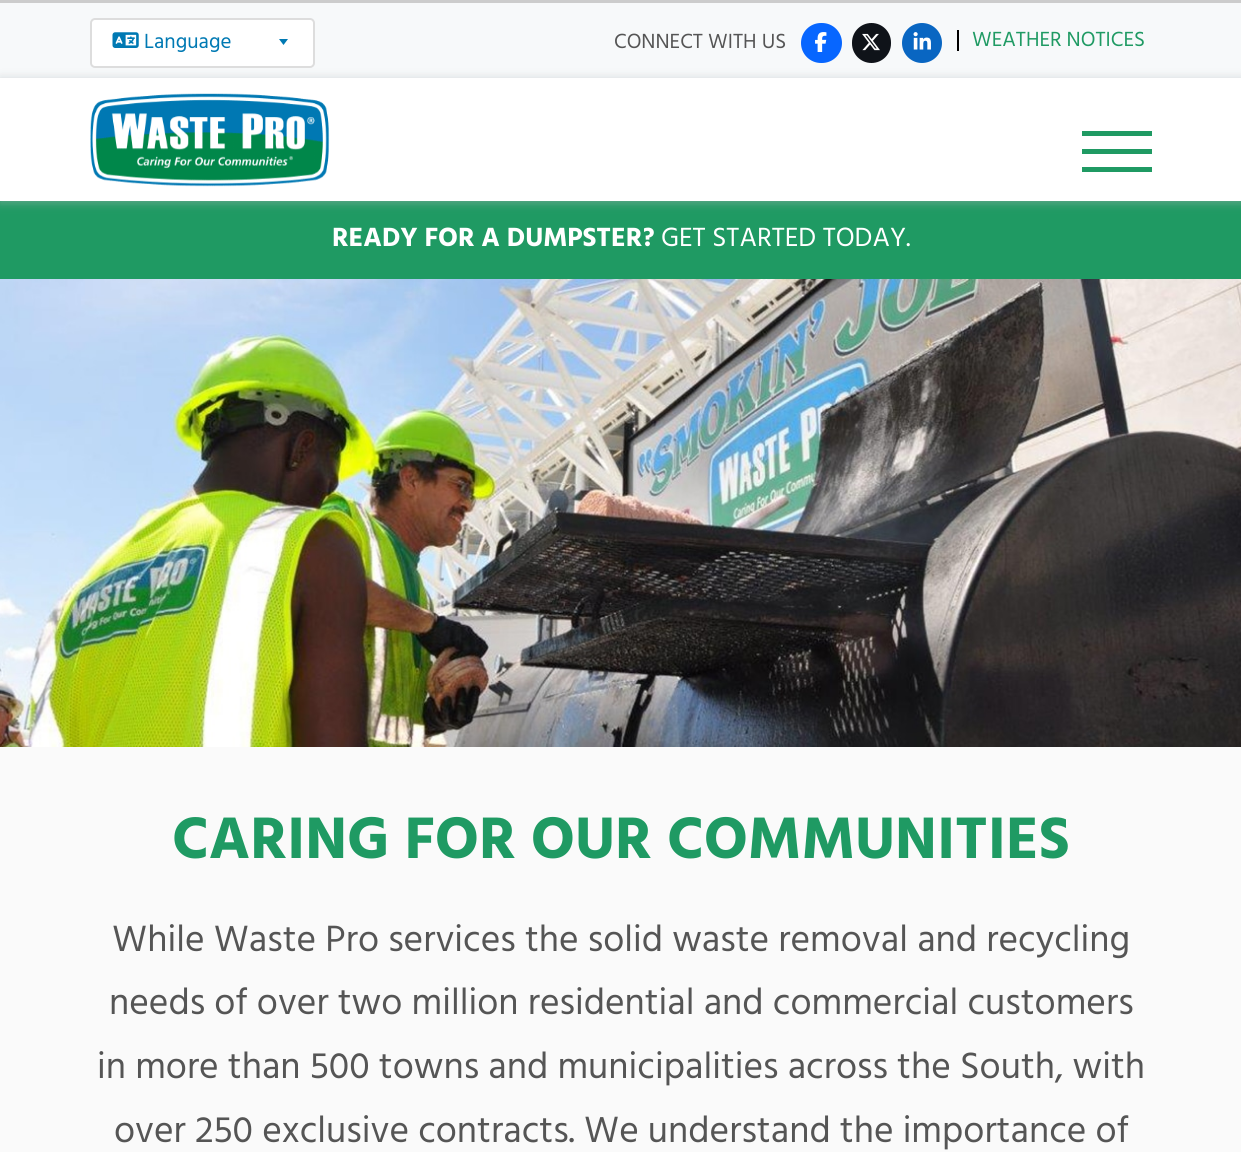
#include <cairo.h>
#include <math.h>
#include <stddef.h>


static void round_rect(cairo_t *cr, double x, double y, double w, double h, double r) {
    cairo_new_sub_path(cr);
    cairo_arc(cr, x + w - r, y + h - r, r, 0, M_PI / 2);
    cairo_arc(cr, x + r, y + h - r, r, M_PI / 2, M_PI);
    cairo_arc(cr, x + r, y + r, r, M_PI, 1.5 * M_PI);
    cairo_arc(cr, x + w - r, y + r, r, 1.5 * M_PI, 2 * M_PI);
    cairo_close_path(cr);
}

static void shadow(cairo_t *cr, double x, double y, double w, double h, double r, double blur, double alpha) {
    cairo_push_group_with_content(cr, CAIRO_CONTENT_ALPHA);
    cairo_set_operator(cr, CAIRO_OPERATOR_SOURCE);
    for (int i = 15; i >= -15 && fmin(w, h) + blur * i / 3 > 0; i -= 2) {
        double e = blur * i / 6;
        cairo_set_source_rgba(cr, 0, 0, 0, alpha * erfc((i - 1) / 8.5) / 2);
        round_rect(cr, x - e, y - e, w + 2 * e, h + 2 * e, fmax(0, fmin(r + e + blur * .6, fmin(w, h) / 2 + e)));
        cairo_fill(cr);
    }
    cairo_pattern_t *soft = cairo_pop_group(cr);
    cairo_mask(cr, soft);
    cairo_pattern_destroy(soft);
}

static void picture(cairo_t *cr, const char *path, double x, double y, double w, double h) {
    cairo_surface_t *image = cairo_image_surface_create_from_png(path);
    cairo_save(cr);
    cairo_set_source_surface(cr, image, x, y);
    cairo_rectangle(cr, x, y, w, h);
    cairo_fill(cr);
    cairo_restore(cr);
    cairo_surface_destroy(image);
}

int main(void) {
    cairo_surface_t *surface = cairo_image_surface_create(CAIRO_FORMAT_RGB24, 1241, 1152);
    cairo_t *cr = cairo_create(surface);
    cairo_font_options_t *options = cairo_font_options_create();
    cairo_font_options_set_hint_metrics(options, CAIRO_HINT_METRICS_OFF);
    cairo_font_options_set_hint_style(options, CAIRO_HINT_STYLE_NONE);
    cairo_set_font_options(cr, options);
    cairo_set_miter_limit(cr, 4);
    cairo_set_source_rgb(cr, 0.98, 0.98, 0.98);
    cairo_paint(cr);
    cairo_set_source_rgb(cr, 0.965, 0.976, 0.98);
    cairo_rectangle(cr, 0, 3, 1241, 75);
    cairo_fill(cr);
    cairo_set_source_rgb(cr, 0.8, 0.8, 0.8);
    cairo_rectangle(cr, 0, 0, 1241, 3);
    cairo_fill(cr);
    cairo_set_source_rgb(cr, 1, 1, 1);
    round_rect(cr, 91, 19, 223, 48, 4);
    cairo_fill_preserve(cr);
    cairo_set_source_rgb(cr, 0.867, 0.867, 0.867);
    cairo_stroke(cr);
    picture(cr, "img1.png", 112, 32, 27, 16);
    cairo_select_font_face(cr, "Hind", CAIRO_FONT_SLANT_NORMAL, CAIRO_FONT_WEIGHT_NORMAL);
    cairo_set_font_size(cr, 21);
    cairo_set_source_rgb(cr, 0, 0.475, 0.702);
    cairo_move_to(cr, 144, 48);
    cairo_show_text(cr, "Language");
    cairo_new_path(cr);
    cairo_move_to(cr, 279, 39);
    cairo_line_to(cr, 288, 39);
    cairo_line_to(cr, 283.5, 45);
    cairo_close_path(cr);
    cairo_fill(cr);
    cairo_set_source_rgb(cr, 0.333, 0.333, 0.333);
    cairo_move_to(cr, 614, 48);
    cairo_show_text(cr, "CONNECT WITH US");
    cairo_set_source_rgb(cr, 0.031, 0.4, 1);
    round_rect(cr, 802.5, 24.5, 38, 37, 18.5);
    cairo_fill_preserve(cr);
    cairo_set_line_width(cr, 3);
    cairo_stroke(cr);
    picture(cr, "img2.png", 815, 32, 12, 20);
    cairo_set_source_rgb(cr, 0.059, 0.078, 0.098);
    round_rect(cr, 853.5, 24.5, 36, 37, 18);
    cairo_fill_preserve(cr);
    cairo_stroke(cr);
    picture(cr, "img3.png", 862, 33, 18, 18);
    cairo_set_source_rgb(cr, 0.039, 0.4, 0.761);
    cairo_arc(cr, 922, 43, 18.5, 0, 2 * M_PI);
    cairo_fill_preserve(cr);
    cairo_stroke(cr);
    picture(cr, "img4.png", 913, 32, 18, 18);
    cairo_set_source_rgb(cr, 0, 0, 0);
    cairo_rectangle(cr, 957, 30, 2, 21);
    cairo_fill(cr);
    cairo_set_source_rgb(cr, 0.122, 0.604, 0.388);
    cairo_move_to(cr, 972, 46);
    cairo_show_text(cr, "WEATHER NOTICES");
    cairo_rectangle(cr, 0, 201, 1241, 78);
    cairo_fill(cr);
    cairo_set_source_rgb(cr, 0.686, 0.71, 0.729);
    shadow(cr, 0, 77, 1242, 123, 0, 4.5, 0.3);
    shadow(cr, 0, 81, 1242, 123, 0, 4.5, 0.3);
    cairo_set_source_rgb(cr, 1, 1, 1);
    cairo_rectangle(cr, 0, 78, 1241, 123);
    cairo_fill(cr);
    picture(cr, "img5.png", 90, 93, 240, 94);
    cairo_set_source_rgb(cr, 0.122, 0.604, 0.388);
    cairo_rectangle(cr, 1082, 149, 70, 5);
    cairo_fill(cr);
    cairo_rectangle(cr, 1082, 131, 70, 5);
    cairo_fill(cr);
    cairo_rectangle(cr, 1082, 167, 70, 5);
    cairo_fill(cr);
    cairo_select_font_face(cr, "Hind", CAIRO_FONT_SLANT_NORMAL, CAIRO_FONT_WEIGHT_BOLD);
    cairo_set_font_size(cr, 27);
    cairo_set_source_rgb(cr, 1, 1, 1);
    cairo_move_to(cr, 332, 246);
    cairo_show_text(cr, "READY FOR A DUMPSTER?");
    cairo_select_font_face(cr, "Hind", CAIRO_FONT_SLANT_NORMAL, CAIRO_FONT_WEIGHT_NORMAL);
    cairo_move_to(cr, 661, 246);
    cairo_show_text(cr, "GET STARTED TODAY.");
    picture(cr, "img6.png", 0, 279, 1241, 468);
    cairo_select_font_face(cr, "Hind", CAIRO_FONT_SLANT_NORMAL, CAIRO_FONT_WEIGHT_BOLD);
    cairo_set_font_size(cr, 60);
    cairo_set_source_rgb(cr, 0.122, 0.604, 0.388);
    cairo_move_to(cr, 172, 858);
    cairo_show_text(cr, "CARING FOR OUR COMMUNITIES");
    cairo_select_font_face(cr, "Hind", CAIRO_FONT_SLANT_NORMAL, CAIRO_FONT_WEIGHT_NORMAL);
    cairo_set_font_size(cr, 37.5);
    cairo_set_source_rgb(cr, 0.333, 0.333, 0.333);
    cairo_move_to(cr, 112, 951);
    cairo_show_text(cr, "While Waste Pro services the solid waste removal and recycling");
    cairo_move_to(cr, 109, 1014);
    cairo_show_text(cr, "needs of over two million residential and commercial customers");
    cairo_move_to(cr, 97, 1078);
    cairo_show_text(cr, "in more than 500 towns and municipalities across the South, with");
    cairo_move_to(cr, 114, 1142);
    cairo_show_text(cr, "over 250 exclusive contracts. We understand the importance of");
    cairo_surface_write_to_png(surface, "page.png");
    cairo_font_options_destroy(options);
    cairo_destroy(cr);
    cairo_surface_destroy(surface);
    return 0;
}
